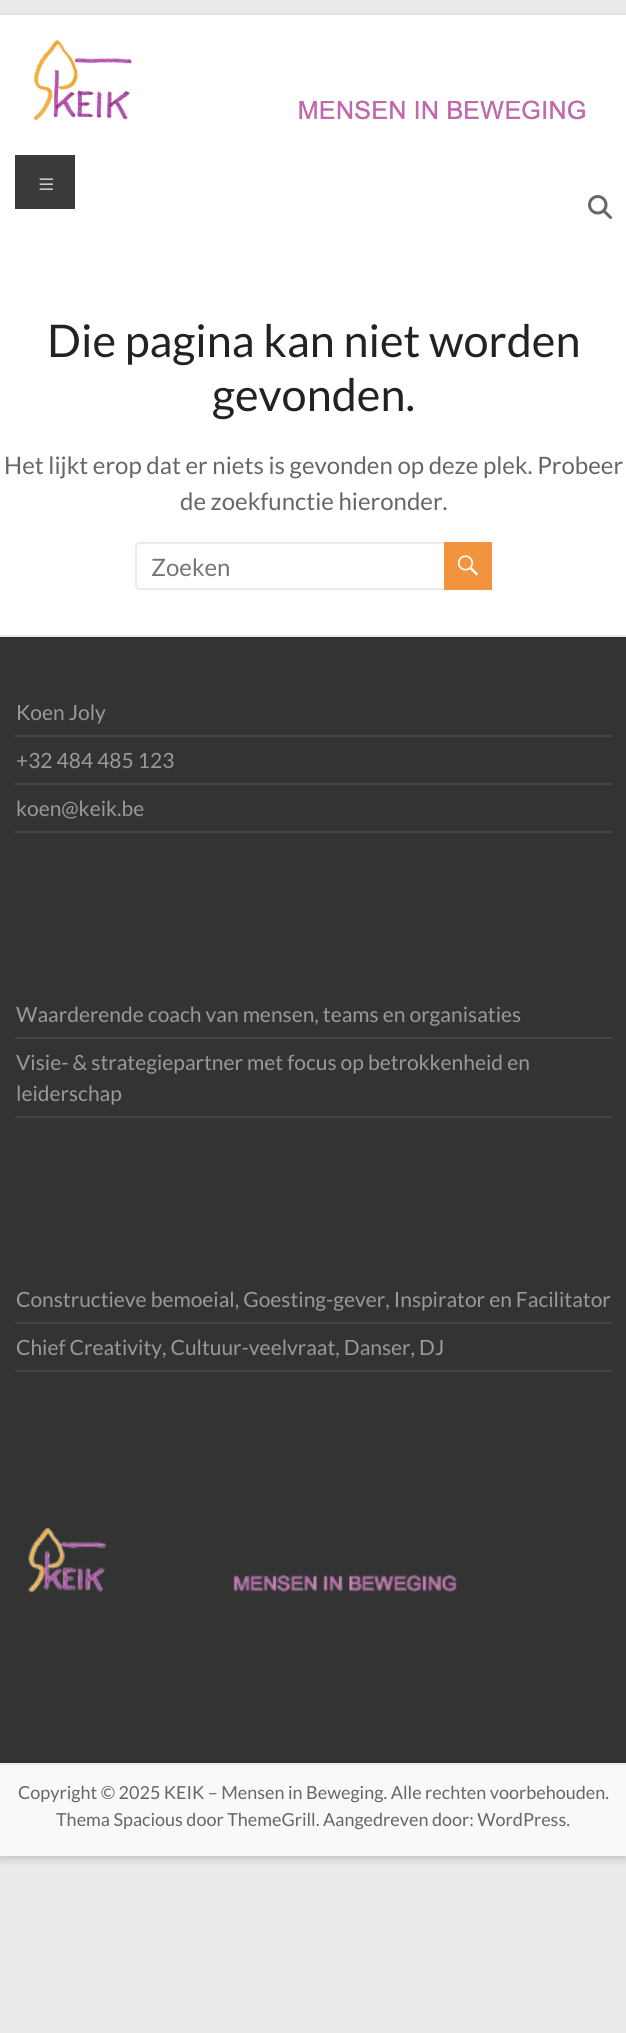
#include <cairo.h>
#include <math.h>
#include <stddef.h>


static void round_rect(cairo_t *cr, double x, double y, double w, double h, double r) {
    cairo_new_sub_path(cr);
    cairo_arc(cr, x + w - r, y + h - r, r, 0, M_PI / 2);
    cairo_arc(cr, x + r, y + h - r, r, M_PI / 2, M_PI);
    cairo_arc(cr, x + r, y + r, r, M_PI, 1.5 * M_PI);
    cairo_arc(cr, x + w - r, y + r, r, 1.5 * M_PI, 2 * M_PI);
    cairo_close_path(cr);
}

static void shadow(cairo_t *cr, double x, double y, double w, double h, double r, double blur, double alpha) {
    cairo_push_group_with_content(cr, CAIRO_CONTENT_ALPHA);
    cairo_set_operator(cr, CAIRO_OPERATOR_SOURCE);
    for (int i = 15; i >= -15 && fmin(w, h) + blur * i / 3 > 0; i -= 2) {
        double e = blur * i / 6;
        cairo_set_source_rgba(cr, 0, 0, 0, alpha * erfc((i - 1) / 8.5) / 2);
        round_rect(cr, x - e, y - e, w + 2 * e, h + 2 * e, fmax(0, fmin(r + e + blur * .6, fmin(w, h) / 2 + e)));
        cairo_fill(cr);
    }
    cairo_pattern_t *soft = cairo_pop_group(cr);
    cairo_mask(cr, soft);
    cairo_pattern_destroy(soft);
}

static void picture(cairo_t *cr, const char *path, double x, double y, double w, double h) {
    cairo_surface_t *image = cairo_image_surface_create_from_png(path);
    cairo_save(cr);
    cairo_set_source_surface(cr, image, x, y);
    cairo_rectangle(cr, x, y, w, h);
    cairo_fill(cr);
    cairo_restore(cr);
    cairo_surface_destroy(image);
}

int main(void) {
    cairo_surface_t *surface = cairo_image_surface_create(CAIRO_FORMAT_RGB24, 626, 2033);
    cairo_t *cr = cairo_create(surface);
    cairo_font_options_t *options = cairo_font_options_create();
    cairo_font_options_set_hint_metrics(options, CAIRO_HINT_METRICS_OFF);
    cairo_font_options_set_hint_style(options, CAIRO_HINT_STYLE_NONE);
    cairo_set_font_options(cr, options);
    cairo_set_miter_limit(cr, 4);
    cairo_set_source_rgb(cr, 0.918, 0.918, 0.918);
    cairo_paint(cr);
    cairo_set_source_rgb(cr, 0.392, 0.392, 0.392);
    shadow(cr, 0, 18, 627, 1841, 0, 4.5, 0.3);
    cairo_set_source_rgb(cr, 1, 1, 1);
    cairo_rectangle(cr, 0, 15, 626, 620);
    cairo_fill(cr);
    picture(cr, "img1.png", 33, 39, 552, 82);
    cairo_set_source_rgb(cr, 0.227, 0.227, 0.227);
    cairo_rectangle(cr, 15, 155, 60, 54);
    cairo_fill(cr);
    cairo_select_font_face(cr, "Lato Light", CAIRO_FONT_SLANT_NORMAL, CAIRO_FONT_WEIGHT_NORMAL);
    cairo_set_font_size(cr, 32);
    cairo_set_source_rgb(cr, 1, 1, 1);
    cairo_move_to(cr, 37, 195);
    cairo_show_text(cr, "≡");
    picture(cr, "img2.png", 588, 195, 24, 24);
    cairo_select_font_face(cr, "Lato", CAIRO_FONT_SLANT_NORMAL, CAIRO_FONT_WEIGHT_NORMAL);
    cairo_set_font_size(cr, 45);
    cairo_set_source_rgb(cr, 0.133, 0.133, 0.133);
    cairo_move_to(cr, 47, 357);
    cairo_show_text(cr, "Die pagina kan niet worden");
    cairo_move_to(cr, 212, 411);
    cairo_show_text(cr, "gevonden.");
    cairo_set_font_size(cr, 24);
    cairo_set_source_rgb(cr, 0.4, 0.4, 0.4);
    cairo_move_to(cr, 4, 474);
    cairo_show_text(cr, "Het lijkt erop dat er niets is gevonden op deze plek. Probeer");
    cairo_move_to(cr, 180, 510);
    cairo_show_text(cr, "de zoekfunctie hieronder.");
    round_rect(cr, 136, 543, 312, 46, 4);
    cairo_set_source_rgb(cr, 0.918, 0.918, 0.918);
    cairo_stroke(cr);
    cairo_set_source_rgb(cr, 0.459, 0.459, 0.459);
    cairo_move_to(cr, 151, 576);
    cairo_show_text(cr, "Zoeken");
    cairo_set_source_rgb(cr, 0.949, 0.576, 0.239);
    cairo_rectangle(cr, 444, 542, 48, 48);
    cairo_fill(cr);
    picture(cr, "img3.png", 457, 555, 21, 21);
    cairo_set_source_rgb(cr, 0.2, 0.2, 0.2);
    cairo_rectangle(cr, 0, 637, 626, 1126);
    cairo_fill(cr);
    cairo_set_source_rgb(cr, 0.918, 0.918, 0.918);
    cairo_rectangle(cr, 0, 635, 626, 2);
    cairo_fill(cr);
    cairo_set_source_rgb(cr, 0.267, 0.267, 0.267);
    cairo_rectangle(cr, 15, 735, 597, 2);
    cairo_fill(cr);
    cairo_set_font_size(cr, 21);
    cairo_set_source_rgb(cr, 0.6, 0.6, 0.6);
    cairo_move_to(cr, 16, 720);
    cairo_show_text(cr, "Koen Joly");
    cairo_set_source_rgb(cr, 0.267, 0.267, 0.267);
    cairo_rectangle(cr, 15, 783, 597, 2);
    cairo_fill(cr);
    cairo_set_source_rgb(cr, 0.6, 0.6, 0.6);
    cairo_move_to(cr, 16, 768);
    cairo_show_text(cr, "+32 484 485 123");
    cairo_set_source_rgb(cr, 0.267, 0.267, 0.267);
    cairo_rectangle(cr, 15, 831, 597, 2);
    cairo_fill(cr);
    cairo_set_source_rgb(cr, 0.6, 0.6, 0.6);
    cairo_move_to(cr, 16, 816);
    cairo_show_text(cr, "koen@keik.be");
    cairo_set_source_rgb(cr, 0.267, 0.267, 0.267);
    cairo_rectangle(cr, 15, 1037, 597, 2);
    cairo_fill(cr);
    cairo_set_source_rgb(cr, 0.6, 0.6, 0.6);
    cairo_move_to(cr, 16, 1022);
    cairo_show_text(cr, "Waarderende coach van mensen, teams en organisaties");
    cairo_set_source_rgb(cr, 0.267, 0.267, 0.267);
    cairo_rectangle(cr, 15, 1116, 597, 2);
    cairo_fill(cr);
    cairo_set_source_rgb(cr, 0.6, 0.6, 0.6);
    cairo_move_to(cr, 16, 1070);
    cairo_show_text(cr, "Visie- & strategiepartner met focus op betrokkenheid en");
    cairo_move_to(cr, 16, 1101);
    cairo_show_text(cr, "leiderschap");
    cairo_set_source_rgb(cr, 0.267, 0.267, 0.267);
    cairo_rectangle(cr, 15, 1322, 597, 2);
    cairo_fill(cr);
    cairo_set_source_rgb(cr, 0.6, 0.6, 0.6);
    cairo_move_to(cr, 16, 1307);
    cairo_show_text(cr, "Constructieve bemoeial, Goesting-gever, Inspirator en Facilitator");
    cairo_set_source_rgb(cr, 0.267, 0.267, 0.267);
    cairo_rectangle(cr, 15, 1370, 597, 2);
    cairo_fill(cr);
    cairo_set_source_rgb(cr, 0.6, 0.6, 0.6);
    cairo_move_to(cr, 16, 1355);
    cairo_show_text(cr, "Chief Creativity, Cultuur-veelvraat, Danser, DJ");
    picture(cr, "img4.png", 28, 1528, 429, 65);
    cairo_set_source_rgb(cr, 0.973, 0.973, 0.973);
    cairo_rectangle(cr, 0, 1765, 626, 91);
    cairo_fill(cr);
    cairo_set_source_rgb(cr, 0.918, 0.918, 0.918);
    cairo_rectangle(cr, 0, 1763, 626, 2);
    cairo_fill(cr);
    cairo_set_font_size(cr, 18);
    cairo_set_source_rgb(cr, 0.4, 0.4, 0.4);
    cairo_move_to(cr, 18, 1799);
    cairo_show_text(cr, "Copyright © 2025 KEIK – Mensen in Beweging. Alle rechten voorbehouden.");
    cairo_move_to(cr, 56, 1826);
    cairo_show_text(cr, "Thema Spacious door ThemeGrill. Aangedreven door: WordPress.");
    cairo_surface_write_to_png(surface, "page.png");
    cairo_font_options_destroy(options);
    cairo_destroy(cr);
    cairo_surface_destroy(surface);
    return 0;
}
